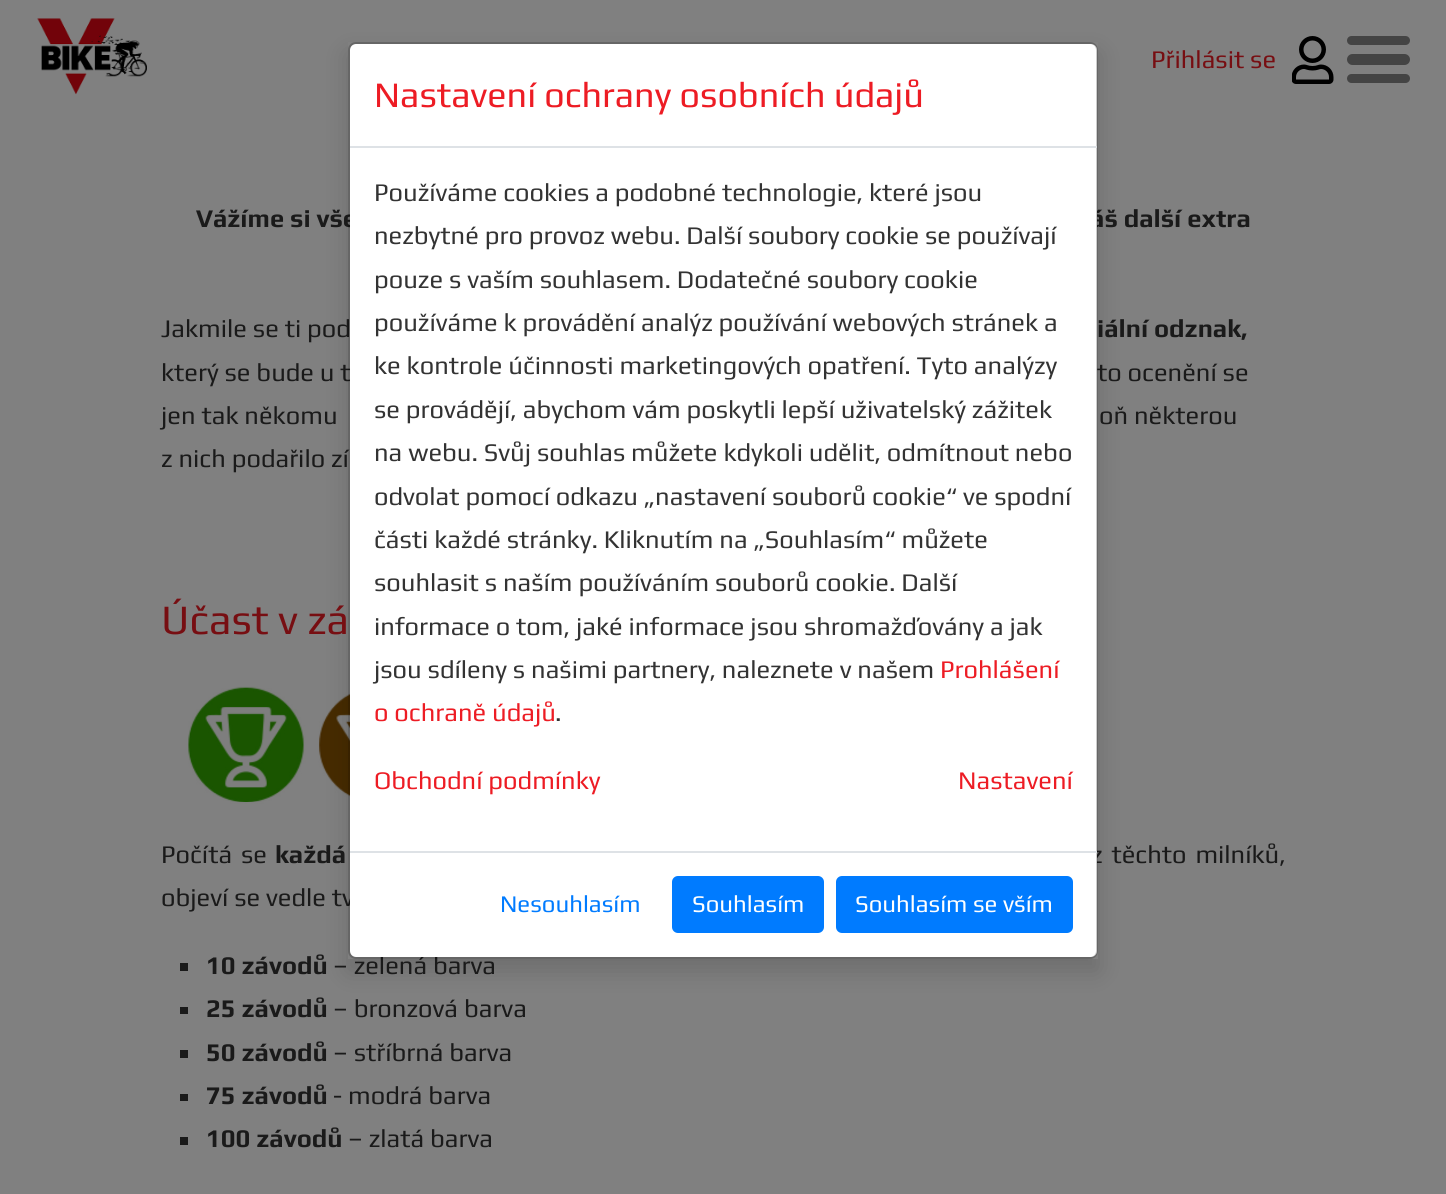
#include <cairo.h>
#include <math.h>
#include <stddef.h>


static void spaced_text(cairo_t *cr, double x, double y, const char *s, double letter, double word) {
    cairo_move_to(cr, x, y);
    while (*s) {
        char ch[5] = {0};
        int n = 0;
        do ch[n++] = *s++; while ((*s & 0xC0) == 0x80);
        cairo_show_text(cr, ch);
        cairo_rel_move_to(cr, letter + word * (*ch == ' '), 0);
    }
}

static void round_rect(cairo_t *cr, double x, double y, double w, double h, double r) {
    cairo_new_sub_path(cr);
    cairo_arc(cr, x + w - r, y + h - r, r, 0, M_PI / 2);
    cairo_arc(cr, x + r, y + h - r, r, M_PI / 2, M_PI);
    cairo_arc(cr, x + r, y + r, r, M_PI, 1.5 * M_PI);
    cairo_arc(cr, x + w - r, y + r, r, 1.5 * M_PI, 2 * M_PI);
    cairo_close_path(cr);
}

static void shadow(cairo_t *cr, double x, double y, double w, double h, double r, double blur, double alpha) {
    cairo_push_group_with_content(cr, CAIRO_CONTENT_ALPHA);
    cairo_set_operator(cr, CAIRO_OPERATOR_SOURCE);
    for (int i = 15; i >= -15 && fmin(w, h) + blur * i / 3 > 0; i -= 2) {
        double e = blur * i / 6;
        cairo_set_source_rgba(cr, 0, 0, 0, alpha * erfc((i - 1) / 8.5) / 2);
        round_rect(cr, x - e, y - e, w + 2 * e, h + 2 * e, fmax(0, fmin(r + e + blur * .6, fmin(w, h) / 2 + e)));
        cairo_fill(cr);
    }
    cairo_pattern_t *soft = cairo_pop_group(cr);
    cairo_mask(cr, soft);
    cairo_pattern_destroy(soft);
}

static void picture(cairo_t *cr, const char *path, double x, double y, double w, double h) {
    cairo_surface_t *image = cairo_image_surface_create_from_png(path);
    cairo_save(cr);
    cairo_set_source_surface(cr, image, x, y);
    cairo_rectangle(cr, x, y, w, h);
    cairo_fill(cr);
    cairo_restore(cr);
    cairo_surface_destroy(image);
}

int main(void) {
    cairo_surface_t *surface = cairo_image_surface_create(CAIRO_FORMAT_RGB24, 1446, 1194);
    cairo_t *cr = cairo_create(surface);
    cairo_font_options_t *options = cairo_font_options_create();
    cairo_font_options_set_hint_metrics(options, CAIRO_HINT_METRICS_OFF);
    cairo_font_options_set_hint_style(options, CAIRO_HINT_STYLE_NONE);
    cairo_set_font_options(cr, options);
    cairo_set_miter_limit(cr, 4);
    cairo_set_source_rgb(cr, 0.502, 0.502, 0.502);
    cairo_paint(cr);
    picture(cr, "img1.png", 37, 18, 110, 77);
    cairo_select_font_face(cr, "Play", CAIRO_FONT_SLANT_NORMAL, CAIRO_FONT_WEIGHT_NORMAL);
    cairo_set_font_size(cr, 25.5);
    cairo_set_source_rgb(cr, 0.467, 0.055, 0.071);
    cairo_move_to(cr, 1151, 68);
    cairo_show_text(cr, "Přihlásit se");
    picture(cr, "img2.png", 1292, 36, 42, 48);
    cairo_set_source_rgb(cr, 0.267, 0.267, 0.267);
    round_rect(cr, 1347, 36, 63, 9, 4.5);
    cairo_fill(cr);
    round_rect(cr, 1347, 54, 63, 11, 5.5);
    cairo_fill(cr);
    round_rect(cr, 1347, 74, 63, 9, 4.5);
    cairo_fill(cr);
    picture(cr, "img3.png", 188, 686, 162, 118);
    cairo_save(cr);
    cairo_set_fill_rule(cr, CAIRO_FILL_RULE_EVEN_ODD);
    cairo_new_path(cr);
    cairo_move_to(cr, 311, 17);
    cairo_line_to(cr, 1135, 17);
    cairo_line_to(cr, 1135, 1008);
    cairo_line_to(cr, 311, 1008);
    cairo_close_path(cr);
    cairo_move_to(cr, 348, 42);
    cairo_line_to(cr, 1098, 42);
    cairo_line_to(cr, 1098, 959);
    cairo_line_to(cr, 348, 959);
    cairo_close_path(cr);
    cairo_clip(cr);
    cairo_set_source_rgb(cr, 0, 0, 0);
    shadow(cr, 348, 54, 750, 917, 0, 12, 0.15);
    cairo_restore(cr);
    cairo_select_font_face(cr, "Play", CAIRO_FONT_SLANT_NORMAL, CAIRO_FONT_WEIGHT_BOLD);
    cairo_set_source_rgb(cr, 0.102, 0.102, 0.102);
    cairo_move_to(cr, 196, 227);
    cairo_show_text(cr, "Vážíme si vše");
    cairo_move_to(cr, 1090, 227);
    cairo_show_text(cr, "áš další extra");
    cairo_select_font_face(cr, "Play", CAIRO_FONT_SLANT_NORMAL, CAIRO_FONT_WEIGHT_NORMAL);
    spaced_text(cr, 1091, 863, "z těchto milníků,", 0, 3);
    cairo_move_to(cr, 161, 906);
    cairo_show_text(cr, "objeví se vedle tv");
    cairo_move_to(cr, 333, 974);
    cairo_show_text(cr, "– zelená barva");
    cairo_set_source_rgb(cr, 1, 1, 1);
    round_rect(cr, 350, 44, 747, 913, 6);
    cairo_fill(cr);
    cairo_set_source_rgb(cr, 0.102, 0.102, 0.102);
    cairo_move_to(cr, 161, 337);
    cairo_show_text(cr, "Jakmile se ti pod");
    cairo_move_to(cr, 161, 381);
    cairo_show_text(cr, "který se bude u t");
    cairo_move_to(cr, 1097, 381);
    cairo_show_text(cr, "to ocenění se");
    cairo_move_to(cr, 161, 467);
    cairo_show_text(cr, "z nich podařilo zí");
    round_rect(cr, 349, 43, 748, 915, 7);
    cairo_set_source_rgba(cr, 0, 0, 0, 0.2);
    cairo_stroke(cr);
    cairo_set_source_rgb(cr, 0.871, 0.886, 0.902);
    cairo_rectangle(cr, 350, 146, 747, 2);
    cairo_fill(cr);
    cairo_set_font_size(cr, 36);
    cairo_set_source_rgb(cr, 0.929, 0.11, 0.141);
    cairo_move_to(cr, 374, 107);
    cairo_show_text(cr, "Nastavení ochrany osobních údajů");
    cairo_set_font_size(cr, 25.5);
    cairo_set_source_rgb(cr, 0.2, 0.2, 0.2);
    cairo_move_to(cr, 374, 201);
    cairo_show_text(cr, "Používáme cookies a podobné technologie, které jsou");
    cairo_move_to(cr, 374, 244);
    cairo_show_text(cr, "nezbytné pro provoz webu. Další soubory cookie se používají");
    cairo_move_to(cr, 374, 288);
    cairo_show_text(cr, "pouze s vaším souhlasem. Dodatečné soubory cookie");
    cairo_move_to(cr, 374, 331);
    cairo_show_text(cr, "používáme k provádění analýz používání webových stránek a");
    cairo_move_to(cr, 374, 374);
    cairo_show_text(cr, "ke kontrole účinnosti marketingových opatření. Tyto analýzy");
    cairo_move_to(cr, 374, 418);
    cairo_show_text(cr, "se provádějí, abychom vám poskytli lepší uživatelský zážitek");
    cairo_move_to(cr, 374, 461);
    cairo_show_text(cr, "na webu. Svůj souhlas můžete kdykoli udělit, odmítnout nebo");
    cairo_move_to(cr, 374, 505);
    cairo_show_text(cr, "odvolat pomocí odkazu „nastavení souborů cookie“ ve spodní");
    cairo_move_to(cr, 374, 548);
    cairo_show_text(cr, "části každé stránky. Kliknutím na „Souhlasím“ můžete");
    cairo_move_to(cr, 374, 591);
    cairo_show_text(cr, "souhlasit s naším používáním souborů cookie. Další");
    cairo_move_to(cr, 374, 635);
    cairo_show_text(cr, "informace o tom, jaké informace jsou shromažďovány a jak");
    cairo_move_to(cr, 374, 678);
    cairo_show_text(cr, "jsou sdíleny s našimi partnery, naleznete v našem");
    cairo_set_source_rgb(cr, 0.929, 0.11, 0.141);
    cairo_move_to(cr, 940, 678);
    cairo_show_text(cr, "Prohlášení");
    cairo_move_to(cr, 374, 721);
    cairo_show_text(cr, "o ochraně údajů");
    cairo_set_source_rgb(cr, 0.2, 0.2, 0.2);
    cairo_move_to(cr, 555, 721);
    cairo_show_text(cr, ".");
    cairo_set_source_rgb(cr, 0.929, 0.11, 0.141);
    cairo_move_to(cr, 374, 789);
    cairo_show_text(cr, "Obchodní podmínky");
    cairo_move_to(cr, 958, 789);
    cairo_show_text(cr, "Nastavení");
    cairo_set_source_rgb(cr, 0.871, 0.886, 0.902);
    cairo_rectangle(cr, 350, 851, 747, 2);
    cairo_fill(cr);
    cairo_set_font_size(cr, 24);
    cairo_set_source_rgb(cr, 0, 0.482, 1);
    cairo_move_to(cr, 500, 912);
    cairo_show_text(cr, "Nesouhlasím");
    round_rect(cr, 673, 877, 150, 55, 5);
    cairo_fill_preserve(cr);
    cairo_stroke(cr);
    cairo_set_source_rgb(cr, 1, 1, 1);
    cairo_move_to(cr, 692, 912);
    cairo_show_text(cr, "Souhlasím");
    cairo_set_source_rgb(cr, 0, 0.482, 1);
    round_rect(cr, 837, 877, 235, 55, 5);
    cairo_fill_preserve(cr);
    cairo_stroke(cr);
    cairo_set_source_rgb(cr, 1, 1, 1);
    cairo_move_to(cr, 855, 912);
    cairo_show_text(cr, "Souhlasím se vším");
    cairo_select_font_face(cr, "Play", CAIRO_FONT_SLANT_NORMAL, CAIRO_FONT_WEIGHT_BOLD);
    cairo_set_font_size(cr, 25.5);
    cairo_set_source_rgb(cr, 0.102, 0.102, 0.102);
    cairo_move_to(cr, 1097, 337);
    cairo_show_text(cr, "iální odznak,");
    cairo_select_font_face(cr, "Play", CAIRO_FONT_SLANT_NORMAL, CAIRO_FONT_WEIGHT_NORMAL);
    cairo_move_to(cr, 161, 424);
    cairo_show_text(cr, "jen tak někomu");
    cairo_move_to(cr, 1099, 424);
    cairo_show_text(cr, "oň některou");
    cairo_set_font_size(cr, 42);
    cairo_set_source_rgb(cr, 0.467, 0.055, 0.071);
    cairo_move_to(cr, 161, 634);
    cairo_show_text(cr, "Účast v zá");
    cairo_set_font_size(cr, 25.5);
    cairo_set_source_rgb(cr, 0.102, 0.102, 0.102);
    spaced_text(cr, 161, 863, "Počítá se", 0, 3);
    cairo_select_font_face(cr, "Play", CAIRO_FONT_SLANT_NORMAL, CAIRO_FONT_WEIGHT_BOLD);
    spaced_text(cr, 275, 863, "každá", 0, 3);
    cairo_rectangle(cr, 180, 963, 8, 8);
    cairo_fill(cr);
    cairo_move_to(cr, 206, 974);
    cairo_show_text(cr, "10 závodů");
    cairo_rectangle(cr, 180, 1007, 8, 7);
    cairo_fill(cr);
    cairo_move_to(cr, 206, 1017);
    cairo_show_text(cr, "25 závodů");
    cairo_select_font_face(cr, "Play", CAIRO_FONT_SLANT_NORMAL, CAIRO_FONT_WEIGHT_NORMAL);
    cairo_move_to(cr, 333, 1017);
    cairo_show_text(cr, "– bronzová barva");
    cairo_rectangle(cr, 180, 1050, 8, 8);
    cairo_fill(cr);
    cairo_select_font_face(cr, "Play", CAIRO_FONT_SLANT_NORMAL, CAIRO_FONT_WEIGHT_BOLD);
    cairo_move_to(cr, 206, 1061);
    cairo_show_text(cr, "50 závodů");
    cairo_select_font_face(cr, "Play", CAIRO_FONT_SLANT_NORMAL, CAIRO_FONT_WEIGHT_NORMAL);
    cairo_move_to(cr, 333, 1061);
    cairo_show_text(cr, "– stříbrná barva");
    cairo_rectangle(cr, 180, 1094, 8, 7);
    cairo_fill(cr);
    cairo_select_font_face(cr, "Play", CAIRO_FONT_SLANT_NORMAL, CAIRO_FONT_WEIGHT_BOLD);
    cairo_move_to(cr, 206, 1104);
    cairo_show_text(cr, "75 závodů");
    cairo_select_font_face(cr, "Play", CAIRO_FONT_SLANT_NORMAL, CAIRO_FONT_WEIGHT_NORMAL);
    cairo_move_to(cr, 333, 1104);
    cairo_show_text(cr, "- modrá barva");
    cairo_rectangle(cr, 180, 1137, 8, 8);
    cairo_fill(cr);
    cairo_select_font_face(cr, "Play", CAIRO_FONT_SLANT_NORMAL, CAIRO_FONT_WEIGHT_BOLD);
    cairo_move_to(cr, 206, 1147);
    cairo_show_text(cr, "100 závodů");
    cairo_select_font_face(cr, "Play", CAIRO_FONT_SLANT_NORMAL, CAIRO_FONT_WEIGHT_NORMAL);
    cairo_move_to(cr, 348, 1147);
    cairo_show_text(cr, "– zlatá barva");
    cairo_surface_write_to_png(surface, "page.png");
    cairo_font_options_destroy(options);
    cairo_destroy(cr);
    cairo_surface_destroy(surface);
    return 0;
}
